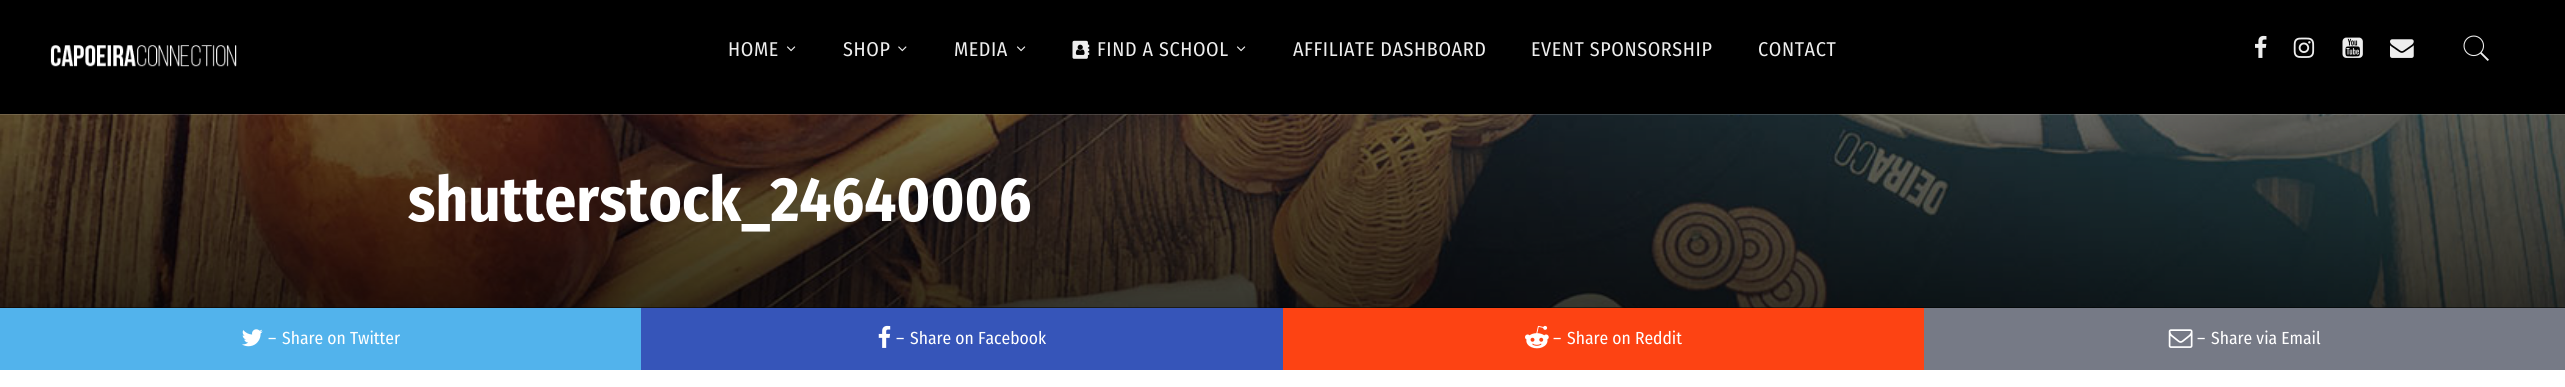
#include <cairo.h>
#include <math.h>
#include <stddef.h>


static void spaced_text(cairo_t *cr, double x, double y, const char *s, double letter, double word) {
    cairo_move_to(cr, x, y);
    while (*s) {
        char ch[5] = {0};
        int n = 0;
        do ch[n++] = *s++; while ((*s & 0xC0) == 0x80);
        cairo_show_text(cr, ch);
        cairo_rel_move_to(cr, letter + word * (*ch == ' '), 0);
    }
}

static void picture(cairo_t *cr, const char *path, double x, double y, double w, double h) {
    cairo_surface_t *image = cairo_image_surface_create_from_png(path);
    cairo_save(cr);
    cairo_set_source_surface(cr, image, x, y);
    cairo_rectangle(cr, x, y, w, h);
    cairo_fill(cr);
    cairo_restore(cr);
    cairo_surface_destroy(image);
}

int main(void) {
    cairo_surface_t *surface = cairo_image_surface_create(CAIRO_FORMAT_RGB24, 2565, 387);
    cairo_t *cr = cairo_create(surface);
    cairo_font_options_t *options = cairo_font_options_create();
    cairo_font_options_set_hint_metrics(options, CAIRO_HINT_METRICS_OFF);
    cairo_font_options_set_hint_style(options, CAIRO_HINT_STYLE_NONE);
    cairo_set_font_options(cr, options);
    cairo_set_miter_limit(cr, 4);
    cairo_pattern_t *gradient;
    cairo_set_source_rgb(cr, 1, 1, 1);
    cairo_paint(cr);
    cairo_set_source_rgb(cr, 0, 0, 0);
    cairo_rectangle(cr, 0, 0, 2565, 114);
    cairo_fill(cr);
    picture(cr, "img1.png", 50, 45, 187, 22);
    cairo_select_font_face(cr, "Fira Sans Condensed", CAIRO_FONT_SLANT_NORMAL, CAIRO_FONT_WEIGHT_NORMAL);
    cairo_set_font_size(cr, 20);
    cairo_set_source_rgb(cr, 0.933, 0.933, 0.933);
    spaced_text(cr, 728, 56, "HOME", 0.6, 0);
    picture(cr, "img2.png", 787, 46, 9, 6);
    spaced_text(cr, 843, 56, "SHOP", 0.6, 0);
    picture(cr, "img3.png", 898, 46, 9, 6);
    spaced_text(cr, 954, 56, "MEDIA", 0.6, 0);
    picture(cr, "img2.png", 1017, 46, 9, 6);
    picture(cr, "img4.png", 1072, 40, 18, 19);
    spaced_text(cr, 1097, 56, "FIND A SCHOOL", 0.6, 0);
    picture(cr, "img2.png", 1237, 46, 9, 6);
    spaced_text(cr, 1293, 56, "AFFILIATE DASHBOARD", 0.6, 0);
    spaced_text(cr, 1531, 56, "EVENT SPONSORSHIP", 0.6, 0);
    spaced_text(cr, 1758, 56, "CONTACT", 0.6, 0);
    picture(cr, "img5.png", 2255, 35, 12, 23);
    picture(cr, "img6.png", 2293, 37, 22, 21);
    picture(cr, "img7.png", 2342, 37, 21, 21);
    picture(cr, "img8.png", 2390, 39, 24, 19);
    picture(cr, "img9.png", 2463, 35, 26, 26);
    cairo_set_source_rgb(cr, 0, 0, 0);
    cairo_rectangle(cr, 0, 307, 2565, 1);
    cairo_fill(cr);
    picture(cr, "img10.png", 0, 114, 2565, 194);
    gradient = cairo_pattern_create_linear(1283, 0, 1283, 308);
    cairo_pattern_add_color_stop_rgba(gradient, 0, 0, 0, 0, 0);
    cairo_pattern_add_color_stop_rgba(gradient, 1, 0, 0, 0, 0.6);
    cairo_set_source(cr, gradient);
    cairo_pattern_destroy(gradient);
    cairo_rectangle(cr, 0, 114, 2565, 194);
    cairo_fill(cr);
    cairo_set_source_rgba(cr, 1, 1, 1, 0.15);
    cairo_rectangle(cr, 0, 114, 2565, 1);
    cairo_fill(cr);
    cairo_select_font_face(cr, "Fira Sans Condensed", CAIRO_FONT_SLANT_NORMAL, CAIRO_FONT_WEIGHT_BOLD);
    cairo_set_font_size(cr, 62.5);
    cairo_set_source_rgb(cr, 1, 1, 1);
    cairo_move_to(cr, 408, 221);
    cairo_show_text(cr, "shutterstock_24640006");
    cairo_set_source_rgb(cr, 0.322, 0.702, 0.922);
    cairo_rectangle(cr, 0, 308, 641, 62);
    cairo_fill(cr);
    picture(cr, "img11.png", 242, 329, 21, 18);
    cairo_select_font_face(cr, "Fira Sans Condensed", CAIRO_FONT_SLANT_NORMAL, CAIRO_FONT_WEIGHT_NORMAL);
    cairo_set_font_size(cr, 17.5);
    cairo_set_source_rgb(cr, 1, 1, 1);
    cairo_move_to(cr, 268, 344);
    cairo_show_text(cr, "–");
    cairo_move_to(cr, 282, 344);
    cairo_show_text(cr, "Share on Twitter");
    cairo_set_source_rgb(cr, 0.212, 0.333, 0.725);
    cairo_rectangle(cr, 641, 308, 642, 62);
    cairo_fill(cr);
    picture(cr, "img12.png", 878, 325, 13, 23);
    cairo_set_source_rgb(cr, 1, 1, 1);
    cairo_move_to(cr, 896, 344);
    cairo_show_text(cr, "–");
    cairo_move_to(cr, 910, 344);
    cairo_show_text(cr, "Share on Facebook");
    cairo_set_source_rgb(cr, 0.992, 0.263, 0.078);
    cairo_rectangle(cr, 1283, 308, 641, 62);
    cairo_fill(cr);
    picture(cr, "img13.png", 1525, 325, 24, 24);
    cairo_set_source_rgb(cr, 1, 1, 1);
    cairo_move_to(cr, 1553, 344);
    cairo_show_text(cr, "–");
    cairo_move_to(cr, 1567, 344);
    cairo_show_text(cr, "Share on Reddit");
    cairo_set_source_rgb(cr, 0.463, 0.478, 0.525);
    cairo_rectangle(cr, 1924, 308, 641, 62);
    cairo_fill(cr);
    picture(cr, "img14.png", 2168, 329, 25, 19);
    cairo_set_source_rgb(cr, 1, 1, 1);
    cairo_move_to(cr, 2197, 344);
    cairo_show_text(cr, "–");
    cairo_move_to(cr, 2211, 344);
    cairo_show_text(cr, "Share via Email");
    cairo_surface_write_to_png(surface, "page.png");
    cairo_font_options_destroy(options);
    cairo_destroy(cr);
    cairo_surface_destroy(surface);
    return 0;
}
